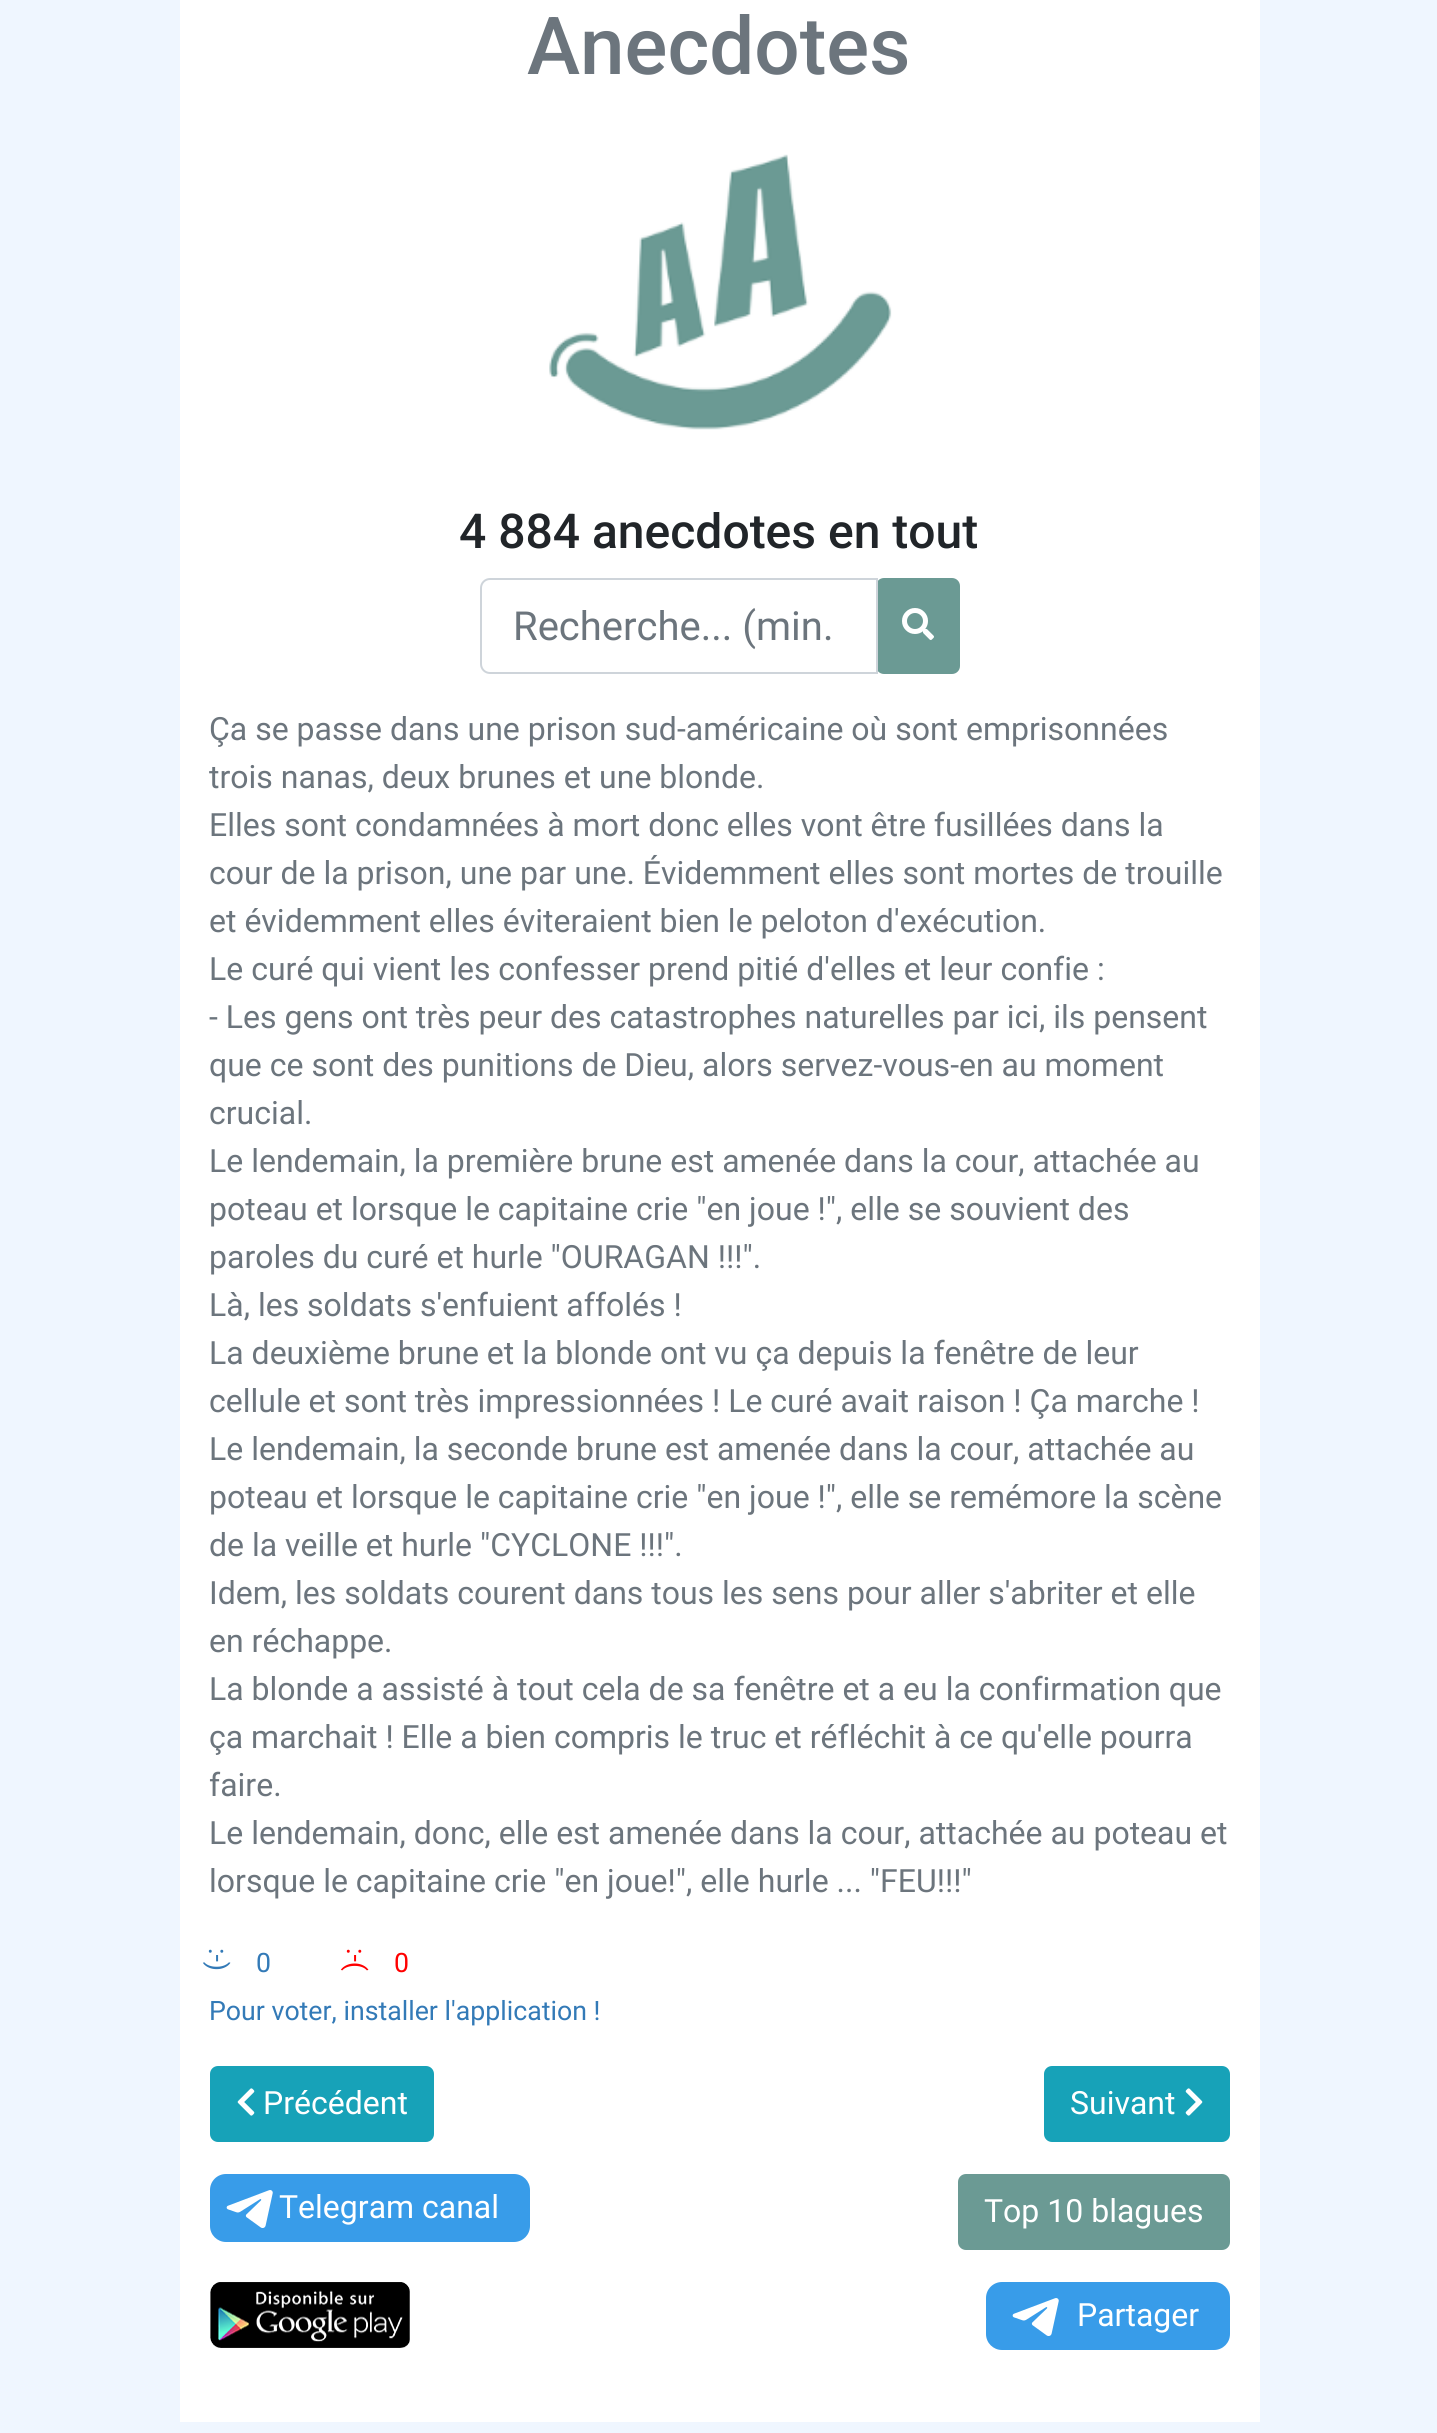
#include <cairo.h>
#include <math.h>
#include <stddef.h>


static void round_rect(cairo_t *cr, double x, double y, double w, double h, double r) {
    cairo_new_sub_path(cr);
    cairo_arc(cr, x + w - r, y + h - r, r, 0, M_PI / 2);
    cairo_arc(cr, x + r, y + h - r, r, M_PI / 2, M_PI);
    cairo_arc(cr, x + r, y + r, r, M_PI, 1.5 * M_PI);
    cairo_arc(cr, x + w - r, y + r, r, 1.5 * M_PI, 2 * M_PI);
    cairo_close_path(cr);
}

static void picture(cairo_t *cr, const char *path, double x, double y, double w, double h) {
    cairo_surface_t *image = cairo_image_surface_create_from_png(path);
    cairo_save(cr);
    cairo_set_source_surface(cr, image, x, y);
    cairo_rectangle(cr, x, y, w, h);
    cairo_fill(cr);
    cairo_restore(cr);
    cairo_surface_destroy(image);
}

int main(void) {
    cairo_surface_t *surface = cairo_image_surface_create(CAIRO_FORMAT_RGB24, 1437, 2433);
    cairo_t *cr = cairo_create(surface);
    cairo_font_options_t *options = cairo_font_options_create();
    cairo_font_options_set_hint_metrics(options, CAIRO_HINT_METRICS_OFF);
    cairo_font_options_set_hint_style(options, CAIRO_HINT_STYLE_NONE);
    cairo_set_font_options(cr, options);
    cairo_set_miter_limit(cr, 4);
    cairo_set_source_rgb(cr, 0.937, 0.961, 1);
    cairo_paint(cr);
    cairo_set_source_rgb(cr, 1, 1, 1);
    cairo_rectangle(cr, 180, 0, 1080, 2422);
    cairo_fill(cr);
    cairo_select_font_face(cr, "Roboto Medium", CAIRO_FONT_SLANT_NORMAL, CAIRO_FONT_WEIGHT_NORMAL);
    cairo_set_font_size(cr, 80);
    cairo_set_source_rgb(cr, 0.424, 0.459, 0.49);
    cairo_move_to(cr, 527, 74);
    cairo_show_text(cr, "Anecdotes");
    picture(cr, "img1.png", 549, 154, 343, 276);
    cairo_set_font_size(cr, 48);
    cairo_set_source_rgb(cr, 0.129, 0.145, 0.161);
    cairo_move_to(cr, 459, 548);
    cairo_show_text(cr, "4 884 anecdotes en tout");
    cairo_set_source_rgb(cr, 0.42, 0.604, 0.58);
    round_rect(cr, 877, 579, 82, 94, 7);
    cairo_fill_preserve(cr);
    cairo_stroke(cr);
    cairo_new_path(cr);
    cairo_move_to(cr, 490, 579);
    cairo_line_to(cr, 877, 579);
    cairo_line_to(cr, 877, 673);
    cairo_line_to(cr, 490, 673);
    cairo_curve_to(cr, 485, 673, 481, 669, 481, 664);
    cairo_line_to(cr, 481, 588);
    cairo_curve_to(cr, 481, 583, 485, 579, 490, 579);
    cairo_close_path(cr);
    cairo_set_source_rgb(cr, 0.808, 0.831, 0.855);
    cairo_stroke(cr);
    cairo_select_font_face(cr, "Roboto", CAIRO_FONT_SLANT_NORMAL, CAIRO_FONT_WEIGHT_NORMAL);
    cairo_set_font_size(cr, 40);
    cairo_set_source_rgb(cr, 0.424, 0.459, 0.49);
    cairo_move_to(cr, 513, 640);
    cairo_show_text(cr, "Recherche... (min.");
    picture(cr, "img2.png", 902, 608, 32, 32);
    cairo_set_font_size(cr, 32);
    cairo_move_to(cr, 209, 740);
    cairo_show_text(cr, "Ça se passe dans une prison sud-américaine où sont emprisonnées");
    cairo_move_to(cr, 209, 788);
    cairo_show_text(cr, "trois nanas, deux brunes et une blonde.");
    cairo_move_to(cr, 209, 836);
    cairo_show_text(cr, "Elles sont condamnées à mort donc elles vont être fusillées dans la");
    cairo_move_to(cr, 209, 884);
    cairo_show_text(cr, "cour de la prison, une par une. Évidemment elles sont mortes de trouille");
    cairo_move_to(cr, 209, 932);
    cairo_show_text(cr, "et évidemment elles éviteraient bien le peloton d'exécution.");
    cairo_move_to(cr, 209, 980);
    cairo_show_text(cr, "Le curé qui vient les confesser prend pitié d'elles et leur confie :");
    cairo_move_to(cr, 209, 1028);
    cairo_show_text(cr, "- Les gens ont très peur des catastrophes naturelles par ici, ils pensent");
    cairo_move_to(cr, 209, 1076);
    cairo_show_text(cr, "que ce sont des punitions de Dieu, alors servez-vous-en au moment");
    cairo_move_to(cr, 209, 1124);
    cairo_show_text(cr, "crucial.");
    cairo_move_to(cr, 209, 1172);
    cairo_show_text(cr, "Le lendemain, la première brune est amenée dans la cour, attachée au");
    cairo_move_to(cr, 209, 1220);
    cairo_show_text(cr, "poteau et lorsque le capitaine crie \"en joue !\", elle se souvient des");
    cairo_move_to(cr, 209, 1268);
    cairo_show_text(cr, "paroles du curé et hurle \"OURAGAN !!!\".");
    cairo_move_to(cr, 209, 1316);
    cairo_show_text(cr, "Là, les soldats s'enfuient affolés !");
    cairo_move_to(cr, 209, 1364);
    cairo_show_text(cr, "La deuxième brune et la blonde ont vu ça depuis la fenêtre de leur");
    cairo_move_to(cr, 209, 1412);
    cairo_show_text(cr, "cellule et sont très impressionnées ! Le curé avait raison ! Ça marche !");
    cairo_move_to(cr, 209, 1460);
    cairo_show_text(cr, "Le lendemain, la seconde brune est amenée dans la cour, attachée au");
    cairo_move_to(cr, 209, 1508);
    cairo_show_text(cr, "poteau et lorsque le capitaine crie \"en joue !\", elle se remémore la scène");
    cairo_move_to(cr, 209, 1556);
    cairo_show_text(cr, "de la veille et hurle \"CYCLONE !!!\".");
    cairo_move_to(cr, 209, 1604);
    cairo_show_text(cr, "Idem, les soldats courent dans tous les sens pour aller s'abriter et elle");
    cairo_move_to(cr, 209, 1652);
    cairo_show_text(cr, "en réchappe.");
    cairo_move_to(cr, 209, 1700);
    cairo_show_text(cr, "La blonde a assisté à tout cela de sa fenêtre et a eu la confirmation que");
    cairo_move_to(cr, 209, 1748);
    cairo_show_text(cr, "ça marchait ! Elle a bien compris le truc et réfléchit à ce qu'elle pourra");
    cairo_move_to(cr, 209, 1796);
    cairo_show_text(cr, "faire.");
    cairo_move_to(cr, 209, 1844);
    cairo_show_text(cr, "Le lendemain, donc, elle est amenée dans la cour, attachée au poteau et");
    cairo_move_to(cr, 209, 1892);
    cairo_show_text(cr, "lorsque le capitaine crie \"en joue!\", elle hurle ... \"FEU!!!\"");
    cairo_set_font_size(cr, 26.7);
    cairo_set_source_rgb(cr, 0.2, 0.478, 0.718);
    cairo_save(cr);
    cairo_translate(cr, 209, 1948);
    cairo_rotate(cr, 90 * M_PI / 180);
    cairo_move_to(cr, 0, 0);
    cairo_show_text(cr, ":-)");
    cairo_restore(cr);
    cairo_move_to(cr, 256, 1972);
    cairo_show_text(cr, "0");
    cairo_set_source_rgb(cr, 1, 0, 0);
    cairo_save(cr);
    cairo_translate(cr, 347, 1948);
    cairo_rotate(cr, 90 * M_PI / 180);
    cairo_move_to(cr, 0, 0);
    cairo_show_text(cr, ":-(");
    cairo_restore(cr);
    cairo_move_to(cr, 394, 1972);
    cairo_show_text(cr, "0");
    cairo_set_source_rgb(cr, 0.2, 0.478, 0.718);
    cairo_move_to(cr, 209, 2020);
    cairo_show_text(cr, "Pour voter, installer l'application !");
    cairo_set_source_rgb(cr, 0.09, 0.635, 0.722);
    round_rect(cr, 211, 2067, 222, 74, 7);
    cairo_fill_preserve(cr);
    cairo_stroke(cr);
    picture(cr, "img3.png", 237, 2088, 18, 28);
    cairo_set_font_size(cr, 32);
    cairo_set_source_rgb(cr, 1, 1, 1);
    cairo_move_to(cr, 263, 2114);
    cairo_show_text(cr, "Précédent");
    cairo_set_source_rgb(cr, 0.09, 0.635, 0.722);
    round_rect(cr, 1045, 2067, 184, 74, 7);
    cairo_fill_preserve(cr);
    cairo_stroke(cr);
    cairo_set_source_rgb(cr, 1, 1, 1);
    cairo_move_to(cr, 1070, 2114);
    cairo_show_text(cr, "Suivant");
    picture(cr, "img4.png", 1185, 2088, 18, 28);
    cairo_set_source_rgb(cr, 0.22, 0.612, 0.914);
    round_rect(cr, 210, 2174, 320, 68, 16);
    cairo_fill(cr);
    picture(cr, "img5.png", 226, 2190, 47, 38);
    cairo_set_source_rgb(cr, 1, 1, 1);
    cairo_move_to(cr, 279, 2218);
    cairo_show_text(cr, "Telegram canal");
    cairo_set_source_rgb(cr, 0.42, 0.604, 0.58);
    round_rect(cr, 959, 2175, 270, 74, 7);
    cairo_fill_preserve(cr);
    cairo_stroke(cr);
    cairo_set_source_rgb(cr, 1, 1, 1);
    cairo_move_to(cr, 984, 2222);
    cairo_show_text(cr, "Top 10 blagues");
    picture(cr, "img6.png", 210, 2282, 200, 66);
    cairo_set_source_rgb(cr, 0.22, 0.612, 0.914);
    round_rect(cr, 986, 2282, 244, 68, 16);
    cairo_fill(cr);
    picture(cr, "img5.png", 1012, 2298, 47, 38);
    cairo_set_source_rgb(cr, 1, 1, 1);
    cairo_move_to(cr, 1077, 2326);
    cairo_show_text(cr, "Partager");
    cairo_surface_write_to_png(surface, "page.png");
    cairo_font_options_destroy(options);
    cairo_destroy(cr);
    cairo_surface_destroy(surface);
    return 0;
}
